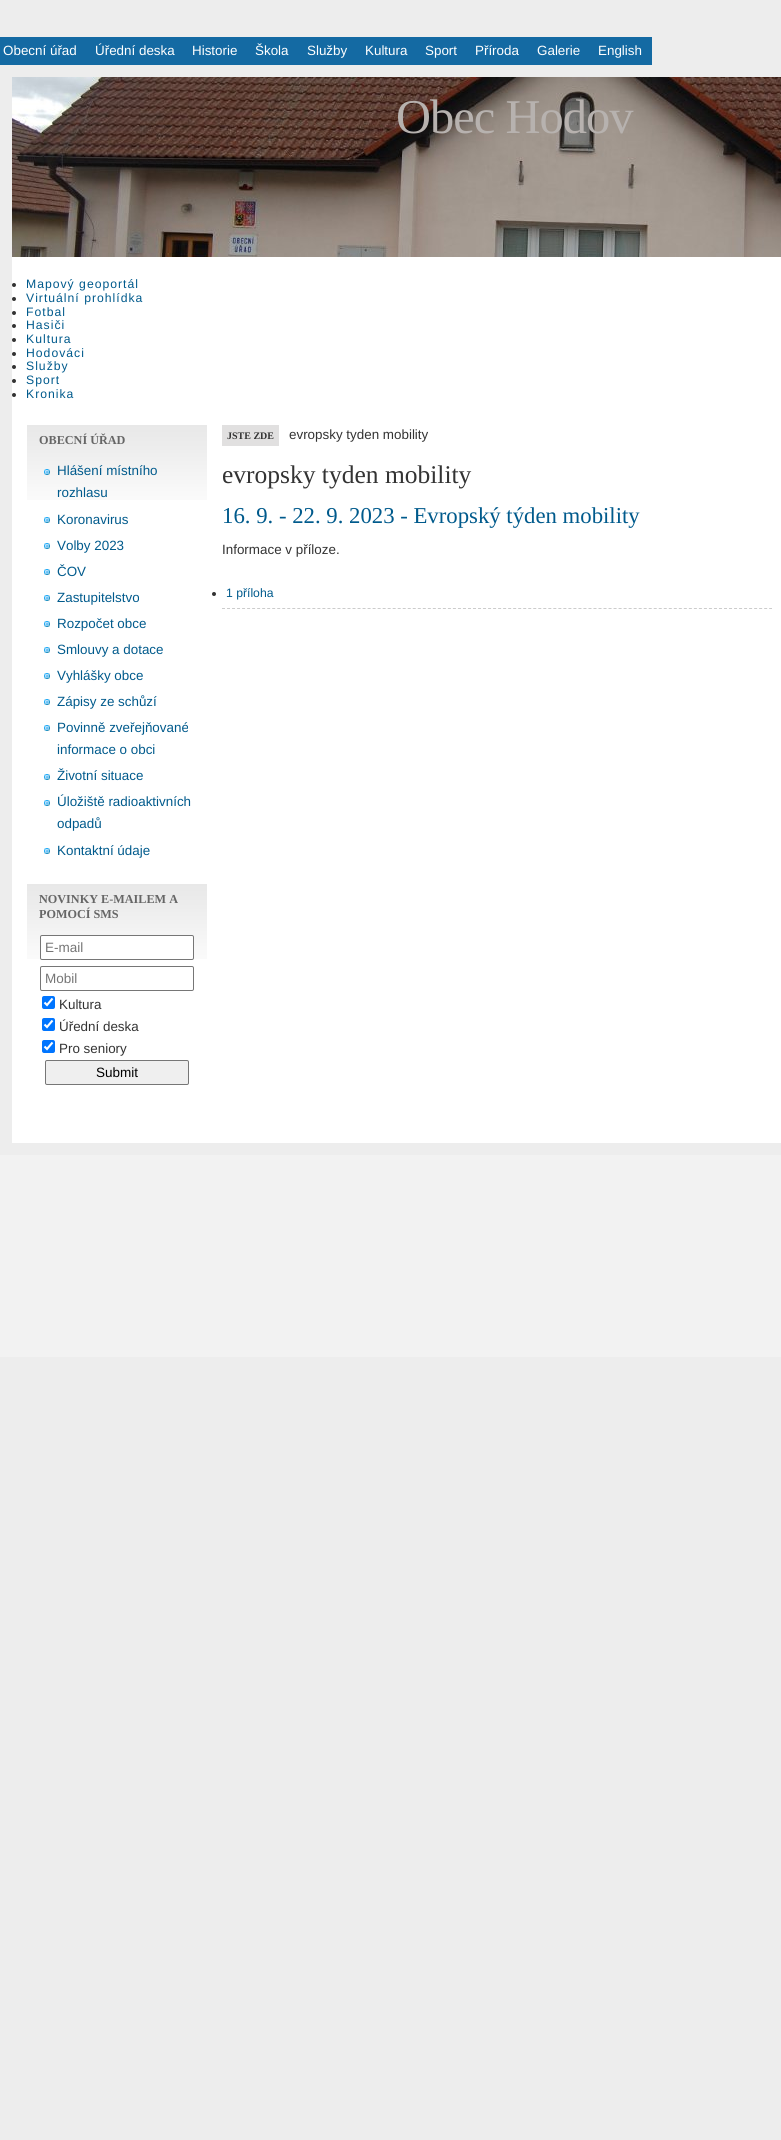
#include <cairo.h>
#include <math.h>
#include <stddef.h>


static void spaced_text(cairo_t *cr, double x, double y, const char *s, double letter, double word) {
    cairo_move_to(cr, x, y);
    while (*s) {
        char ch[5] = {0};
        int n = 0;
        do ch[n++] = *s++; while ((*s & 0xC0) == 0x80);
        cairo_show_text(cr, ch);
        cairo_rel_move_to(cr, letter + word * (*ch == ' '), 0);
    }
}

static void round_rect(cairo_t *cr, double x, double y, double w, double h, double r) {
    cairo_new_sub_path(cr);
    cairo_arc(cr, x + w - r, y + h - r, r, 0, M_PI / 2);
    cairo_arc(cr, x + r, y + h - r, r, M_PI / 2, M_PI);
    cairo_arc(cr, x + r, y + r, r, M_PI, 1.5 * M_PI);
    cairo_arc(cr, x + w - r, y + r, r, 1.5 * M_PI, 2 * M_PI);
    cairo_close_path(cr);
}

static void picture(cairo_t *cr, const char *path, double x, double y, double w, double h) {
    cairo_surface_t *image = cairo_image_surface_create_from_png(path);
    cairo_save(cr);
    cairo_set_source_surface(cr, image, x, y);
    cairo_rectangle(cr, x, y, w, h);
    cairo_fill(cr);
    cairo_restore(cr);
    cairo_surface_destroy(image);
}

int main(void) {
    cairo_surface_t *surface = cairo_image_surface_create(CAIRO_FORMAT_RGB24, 781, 2140);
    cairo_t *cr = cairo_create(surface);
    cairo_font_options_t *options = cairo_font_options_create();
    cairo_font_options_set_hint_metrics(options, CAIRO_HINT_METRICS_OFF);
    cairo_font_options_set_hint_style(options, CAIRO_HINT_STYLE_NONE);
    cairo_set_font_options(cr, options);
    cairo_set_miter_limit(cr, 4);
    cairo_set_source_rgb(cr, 0.929, 0.929, 0.929);
    cairo_paint(cr);
    cairo_set_source_rgb(cr, 0.082, 0.416, 0.639);
    cairo_rectangle(cr, 0, 37, 652, 28);
    cairo_fill(cr);
    cairo_select_font_face(cr, "Liberation Sans", CAIRO_FONT_SLANT_NORMAL, CAIRO_FONT_WEIGHT_NORMAL);
    cairo_set_font_size(cr, 13.4);
    cairo_set_source_rgb(cr, 1, 1, 1);
    cairo_move_to(cr, 3, 55);
    cairo_show_text(cr, "Obecní úřad");
    cairo_move_to(cr, 95, 55);
    cairo_show_text(cr, "Úřední deska");
    cairo_move_to(cr, 192, 55);
    cairo_show_text(cr, "Historie");
    cairo_move_to(cr, 255, 55);
    cairo_show_text(cr, "Škola");
    cairo_move_to(cr, 307, 55);
    cairo_show_text(cr, "Služby");
    cairo_move_to(cr, 365, 55);
    cairo_show_text(cr, "Kultura");
    cairo_move_to(cr, 425, 55);
    cairo_show_text(cr, "Sport");
    cairo_move_to(cr, 475, 55);
    cairo_show_text(cr, "Příroda");
    cairo_move_to(cr, 537, 55);
    cairo_show_text(cr, "Galerie");
    cairo_move_to(cr, 598, 55);
    cairo_show_text(cr, "English");
    cairo_rectangle(cr, 12, 257, 769, 886);
    cairo_fill(cr);
    picture(cr, "img1.png", 12, 77, 769, 180);
    cairo_select_font_face(cr, "Liberation Serif", CAIRO_FONT_SLANT_NORMAL, CAIRO_FONT_WEIGHT_NORMAL);
    cairo_set_font_size(cr, 48.5);
    cairo_set_source_rgb(cr, 0.718, 0.698, 0.686);
    spaced_text(cr, 396, 133, "Obec Hodov", -1, 0);
    cairo_set_source_rgb(cr, 0.2, 0.2, 0.2);
    cairo_new_path(cr);
    cairo_arc(cr, 14, 285, 2, 0, 2 * M_PI);
    cairo_fill(cr);
    cairo_select_font_face(cr, "Liberation Sans", CAIRO_FONT_SLANT_NORMAL, CAIRO_FONT_WEIGHT_NORMAL);
    cairo_set_font_size(cr, 12.2);
    cairo_set_source_rgb(cr, 0, 0.353, 0.549);
    spaced_text(cr, 26, 288, "Mapový geoportál", 1, 0);
    cairo_set_source_rgb(cr, 0.2, 0.2, 0.2);
    cairo_new_path(cr);
    cairo_arc(cr, 14, 299, 2, 0, 2 * M_PI);
    cairo_fill(cr);
    cairo_set_source_rgb(cr, 0, 0.353, 0.549);
    spaced_text(cr, 26, 302, "Virtuální prohlídka", 1, 0);
    cairo_set_source_rgb(cr, 0.2, 0.2, 0.2);
    cairo_new_path(cr);
    cairo_arc(cr, 14, 313, 2, 0, 2 * M_PI);
    cairo_fill(cr);
    cairo_set_source_rgb(cr, 0, 0.353, 0.549);
    spaced_text(cr, 26, 316, "Fotbal", 1, 0);
    cairo_set_source_rgb(cr, 0.2, 0.2, 0.2);
    cairo_new_path(cr);
    cairo_arc(cr, 14, 326, 2, 0, 2 * M_PI);
    cairo_fill(cr);
    cairo_set_source_rgb(cr, 0, 0.353, 0.549);
    spaced_text(cr, 26, 329, "Hasiči", 1, 0);
    cairo_set_source_rgb(cr, 0.2, 0.2, 0.2);
    cairo_new_path(cr);
    cairo_arc(cr, 14, 340, 2, 0, 2 * M_PI);
    cairo_fill(cr);
    cairo_set_source_rgb(cr, 0, 0.353, 0.549);
    spaced_text(cr, 26, 343, "Kultura", 1, 0);
    cairo_set_source_rgb(cr, 0.2, 0.2, 0.2);
    cairo_new_path(cr);
    cairo_arc(cr, 14, 354, 2, 0, 2 * M_PI);
    cairo_fill(cr);
    cairo_set_source_rgb(cr, 0, 0.353, 0.549);
    spaced_text(cr, 26, 357, "Hodováci", 1, 0);
    cairo_set_source_rgb(cr, 0.2, 0.2, 0.2);
    cairo_new_path(cr);
    cairo_arc(cr, 14, 367, 2, 0, 2 * M_PI);
    cairo_fill(cr);
    cairo_set_source_rgb(cr, 0, 0.353, 0.549);
    spaced_text(cr, 26, 370, "Služby", 1, 0);
    cairo_set_source_rgb(cr, 0.2, 0.2, 0.2);
    cairo_new_path(cr);
    cairo_arc(cr, 14, 381, 2, 0, 2 * M_PI);
    cairo_fill(cr);
    cairo_set_source_rgb(cr, 0, 0.353, 0.549);
    spaced_text(cr, 26, 384, "Sport", 1, 0);
    cairo_set_source_rgb(cr, 0.2, 0.2, 0.2);
    cairo_new_path(cr);
    cairo_arc(cr, 14, 395, 2, 0, 2 * M_PI);
    cairo_fill(cr);
    cairo_set_source_rgb(cr, 0, 0.353, 0.549);
    spaced_text(cr, 26, 398, "Kronika", 1, 0);
    picture(cr, "img2.png", 27, 425, 180, 75);
    cairo_select_font_face(cr, "Liberation Serif", CAIRO_FONT_SLANT_NORMAL, CAIRO_FONT_WEIGHT_BOLD);
    cairo_set_source_rgb(cr, 0.4, 0.4, 0.4);
    cairo_move_to(cr, 39, 444);
    cairo_show_text(cr, "OBECNÍ ÚŘAD");
    picture(cr, "img3.png", 44, 469, 6, 6);
    cairo_select_font_face(cr, "Liberation Sans", CAIRO_FONT_SLANT_NORMAL, CAIRO_FONT_WEIGHT_NORMAL);
    cairo_set_font_size(cr, 13.4);
    cairo_set_source_rgb(cr, 0, 0.353, 0.549);
    cairo_move_to(cr, 57, 475);
    cairo_show_text(cr, "Hlášení místního");
    cairo_move_to(cr, 57, 497);
    cairo_show_text(cr, "rozhlasu");
    picture(cr, "img3.png", 44, 517, 6, 6);
    cairo_move_to(cr, 57, 524);
    cairo_show_text(cr, "Koronavirus");
    picture(cr, "img3.png", 44, 543, 6, 6);
    cairo_move_to(cr, 57, 550);
    cairo_show_text(cr, "Volby 2023");
    picture(cr, "img3.png", 44, 569, 6, 6);
    cairo_move_to(cr, 57, 576);
    cairo_show_text(cr, "ČOV");
    picture(cr, "img3.png", 44, 595, 6, 6);
    cairo_move_to(cr, 57, 602);
    cairo_show_text(cr, "Zastupitelstvo");
    picture(cr, "img3.png", 44, 621, 6, 6);
    cairo_move_to(cr, 57, 628);
    cairo_show_text(cr, "Rozpočet obce");
    picture(cr, "img3.png", 44, 647, 6, 6);
    cairo_move_to(cr, 57, 654);
    cairo_show_text(cr, "Smlouvy a dotace");
    picture(cr, "img3.png", 44, 673, 6, 6);
    cairo_move_to(cr, 57, 680);
    cairo_show_text(cr, "Vyhlášky obce");
    picture(cr, "img3.png", 44, 699, 6, 6);
    cairo_move_to(cr, 57, 706);
    cairo_show_text(cr, "Zápisy ze schůzí");
    picture(cr, "img3.png", 44, 725, 6, 6);
    cairo_move_to(cr, 57, 732);
    cairo_show_text(cr, "Povinně zveřejňované");
    cairo_move_to(cr, 57, 754);
    cairo_show_text(cr, "informace o obci");
    picture(cr, "img3.png", 44, 774, 6, 6);
    cairo_move_to(cr, 57, 780);
    cairo_show_text(cr, "Životní situace");
    picture(cr, "img3.png", 44, 800, 6, 6);
    cairo_move_to(cr, 57, 806);
    cairo_show_text(cr, "Úložiště radioaktivních");
    cairo_move_to(cr, 57, 828);
    cairo_show_text(cr, "odpadů");
    picture(cr, "img3.png", 44, 848, 6, 6);
    cairo_move_to(cr, 57, 855);
    cairo_show_text(cr, "Kontaktní údaje");
    picture(cr, "img2.png", 27, 884, 180, 75);
    cairo_select_font_face(cr, "Liberation Serif", CAIRO_FONT_SLANT_NORMAL, CAIRO_FONT_WEIGHT_BOLD);
    cairo_set_font_size(cr, 12.2);
    cairo_set_source_rgb(cr, 0.4, 0.4, 0.4);
    cairo_move_to(cr, 39, 903);
    cairo_show_text(cr, "NOVINKY E-MAILEM A");
    cairo_move_to(cr, 39, 918);
    cairo_show_text(cr, "POMOCÍ SMS");
    cairo_set_source_rgb(cr, 1, 1, 1);
    round_rect(cr, 40.5, 935.5, 153, 24, 1.5);
    cairo_fill_preserve(cr);
    cairo_set_source_rgb(cr, 0.463, 0.463, 0.463);
    cairo_set_line_width(cr, 1);
    cairo_stroke(cr);
    cairo_select_font_face(cr, "Liberation Sans", CAIRO_FONT_SLANT_NORMAL, CAIRO_FONT_WEIGHT_NORMAL);
    cairo_set_font_size(cr, 13.5);
    cairo_set_source_rgb(cr, 0.459, 0.459, 0.459);
    cairo_move_to(cr, 45, 952);
    cairo_show_text(cr, "E-mail");
    round_rect(cr, 40.5, 966.5, 153, 24, 1.5);
    cairo_set_source_rgb(cr, 0.463, 0.463, 0.463);
    cairo_stroke(cr);
    cairo_set_source_rgb(cr, 0.459, 0.459, 0.459);
    cairo_move_to(cr, 45, 983);
    cairo_show_text(cr, "Mobil");
    cairo_set_source_rgb(cr, 0, 0.459, 1);
    round_rect(cr, 42, 996, 13, 13, 2);
    cairo_fill(cr);
    cairo_new_path(cr);
    cairo_move_to(cr, 44.5, 1002.5);
    cairo_line_to(cr, 47, 1005);
    cairo_line_to(cr, 52.5, 998.5);
    cairo_set_source_rgb(cr, 1, 1, 1);
    cairo_set_line_width(cr, 2.1);
    cairo_stroke(cr);
    cairo_set_font_size(cr, 13.4);
    cairo_set_source_rgb(cr, 0.2, 0.2, 0.2);
    cairo_move_to(cr, 59, 1009);
    cairo_show_text(cr, "Kultura");
    cairo_set_source_rgb(cr, 0, 0.459, 1);
    round_rect(cr, 42, 1018, 13, 13, 2);
    cairo_fill(cr);
    cairo_new_path(cr);
    cairo_move_to(cr, 44.5, 1024.5);
    cairo_line_to(cr, 47, 1027);
    cairo_line_to(cr, 52.5, 1020.5);
    cairo_set_source_rgb(cr, 1, 1, 1);
    cairo_stroke(cr);
    cairo_set_source_rgb(cr, 0.2, 0.2, 0.2);
    cairo_move_to(cr, 59, 1031);
    cairo_show_text(cr, "Úřední deska");
    cairo_set_source_rgb(cr, 0, 0.459, 1);
    round_rect(cr, 42, 1040, 13, 13, 2);
    cairo_fill(cr);
    cairo_new_path(cr);
    cairo_move_to(cr, 44.5, 1046.5);
    cairo_line_to(cr, 47, 1049);
    cairo_line_to(cr, 52.5, 1042.5);
    cairo_set_source_rgb(cr, 1, 1, 1);
    cairo_stroke(cr);
    cairo_set_source_rgb(cr, 0.2, 0.2, 0.2);
    cairo_move_to(cr, 59, 1053);
    cairo_show_text(cr, "Pro seniory");
    cairo_set_source_rgb(cr, 0.937, 0.937, 0.937);
    round_rect(cr, 45.5, 1060.5, 143, 24, 1.5);
    cairo_fill_preserve(cr);
    cairo_set_source_rgb(cr, 0.463, 0.463, 0.463);
    cairo_set_line_width(cr, 1);
    cairo_stroke(cr);
    cairo_set_font_size(cr, 13.5);
    cairo_set_source_rgb(cr, 0, 0, 0);
    cairo_move_to(cr, 96, 1077);
    cairo_show_text(cr, "Submit");
    cairo_set_source_rgb(cr, 0.882, 0.878, 0.878);
    cairo_rectangle(cr, 222, 425, 57, 21);
    cairo_fill(cr);
    cairo_select_font_face(cr, "Liberation Serif", CAIRO_FONT_SLANT_NORMAL, CAIRO_FONT_WEIGHT_BOLD);
    cairo_set_font_size(cr, 10);
    cairo_set_source_rgb(cr, 0.2, 0.2, 0.2);
    cairo_move_to(cr, 227, 439);
    cairo_show_text(cr, "JSTE ZDE");
    cairo_select_font_face(cr, "Liberation Sans", CAIRO_FONT_SLANT_NORMAL, CAIRO_FONT_WEIGHT_NORMAL);
    cairo_set_font_size(cr, 13.4);
    cairo_move_to(cr, 289, 439);
    cairo_show_text(cr, "evropsky tyden mobility");
    cairo_select_font_face(cr, "Liberation Serif", CAIRO_FONT_SLANT_NORMAL, CAIRO_FONT_WEIGHT_NORMAL);
    cairo_set_font_size(cr, 25.5);
    cairo_move_to(cr, 222, 483);
    cairo_show_text(cr, "evropsky tyden mobility");
    cairo_set_font_size(cr, 22.75);
    cairo_set_source_rgb(cr, 0, 0.353, 0.549);
    cairo_move_to(cr, 222, 523);
    cairo_show_text(cr, "16. 9. - 22. 9. 2023 - Evropský týden mobility");
    cairo_select_font_face(cr, "Liberation Sans", CAIRO_FONT_SLANT_NORMAL, CAIRO_FONT_WEIGHT_NORMAL);
    cairo_set_font_size(cr, 13.4);
    cairo_set_source_rgb(cr, 0.2, 0.2, 0.2);
    cairo_move_to(cr, 222, 554);
    cairo_show_text(cr, "Informace v příloze.");
    cairo_new_path(cr);
    cairo_move_to(cr, 222, 608.5);
    cairo_line_to(cr, 772, 608.5);
    cairo_set_source_rgb(cr, 0.8, 0.8, 0.8);
    cairo_set_dash(cr, (double[]){3, 2.02}, 2, 0);
    cairo_stroke(cr);
    cairo_set_source_rgb(cr, 0.2, 0.2, 0.2);
    cairo_arc(cr, 214, 594, 2, 0, 2 * M_PI);
    cairo_fill(cr);
    cairo_set_font_size(cr, 12.2);
    cairo_set_source_rgb(cr, 0, 0.353, 0.549);
    cairo_move_to(cr, 226, 597);
    cairo_show_text(cr, "1 příloha");
    cairo_set_source_rgb(cr, 0.949, 0.949, 0.949);
    cairo_rectangle(cr, 0, 1155, 781, 202);
    cairo_fill(cr);
    cairo_surface_write_to_png(surface, "page.png");
    cairo_font_options_destroy(options);
    cairo_destroy(cr);
    cairo_surface_destroy(surface);
    return 0;
}
